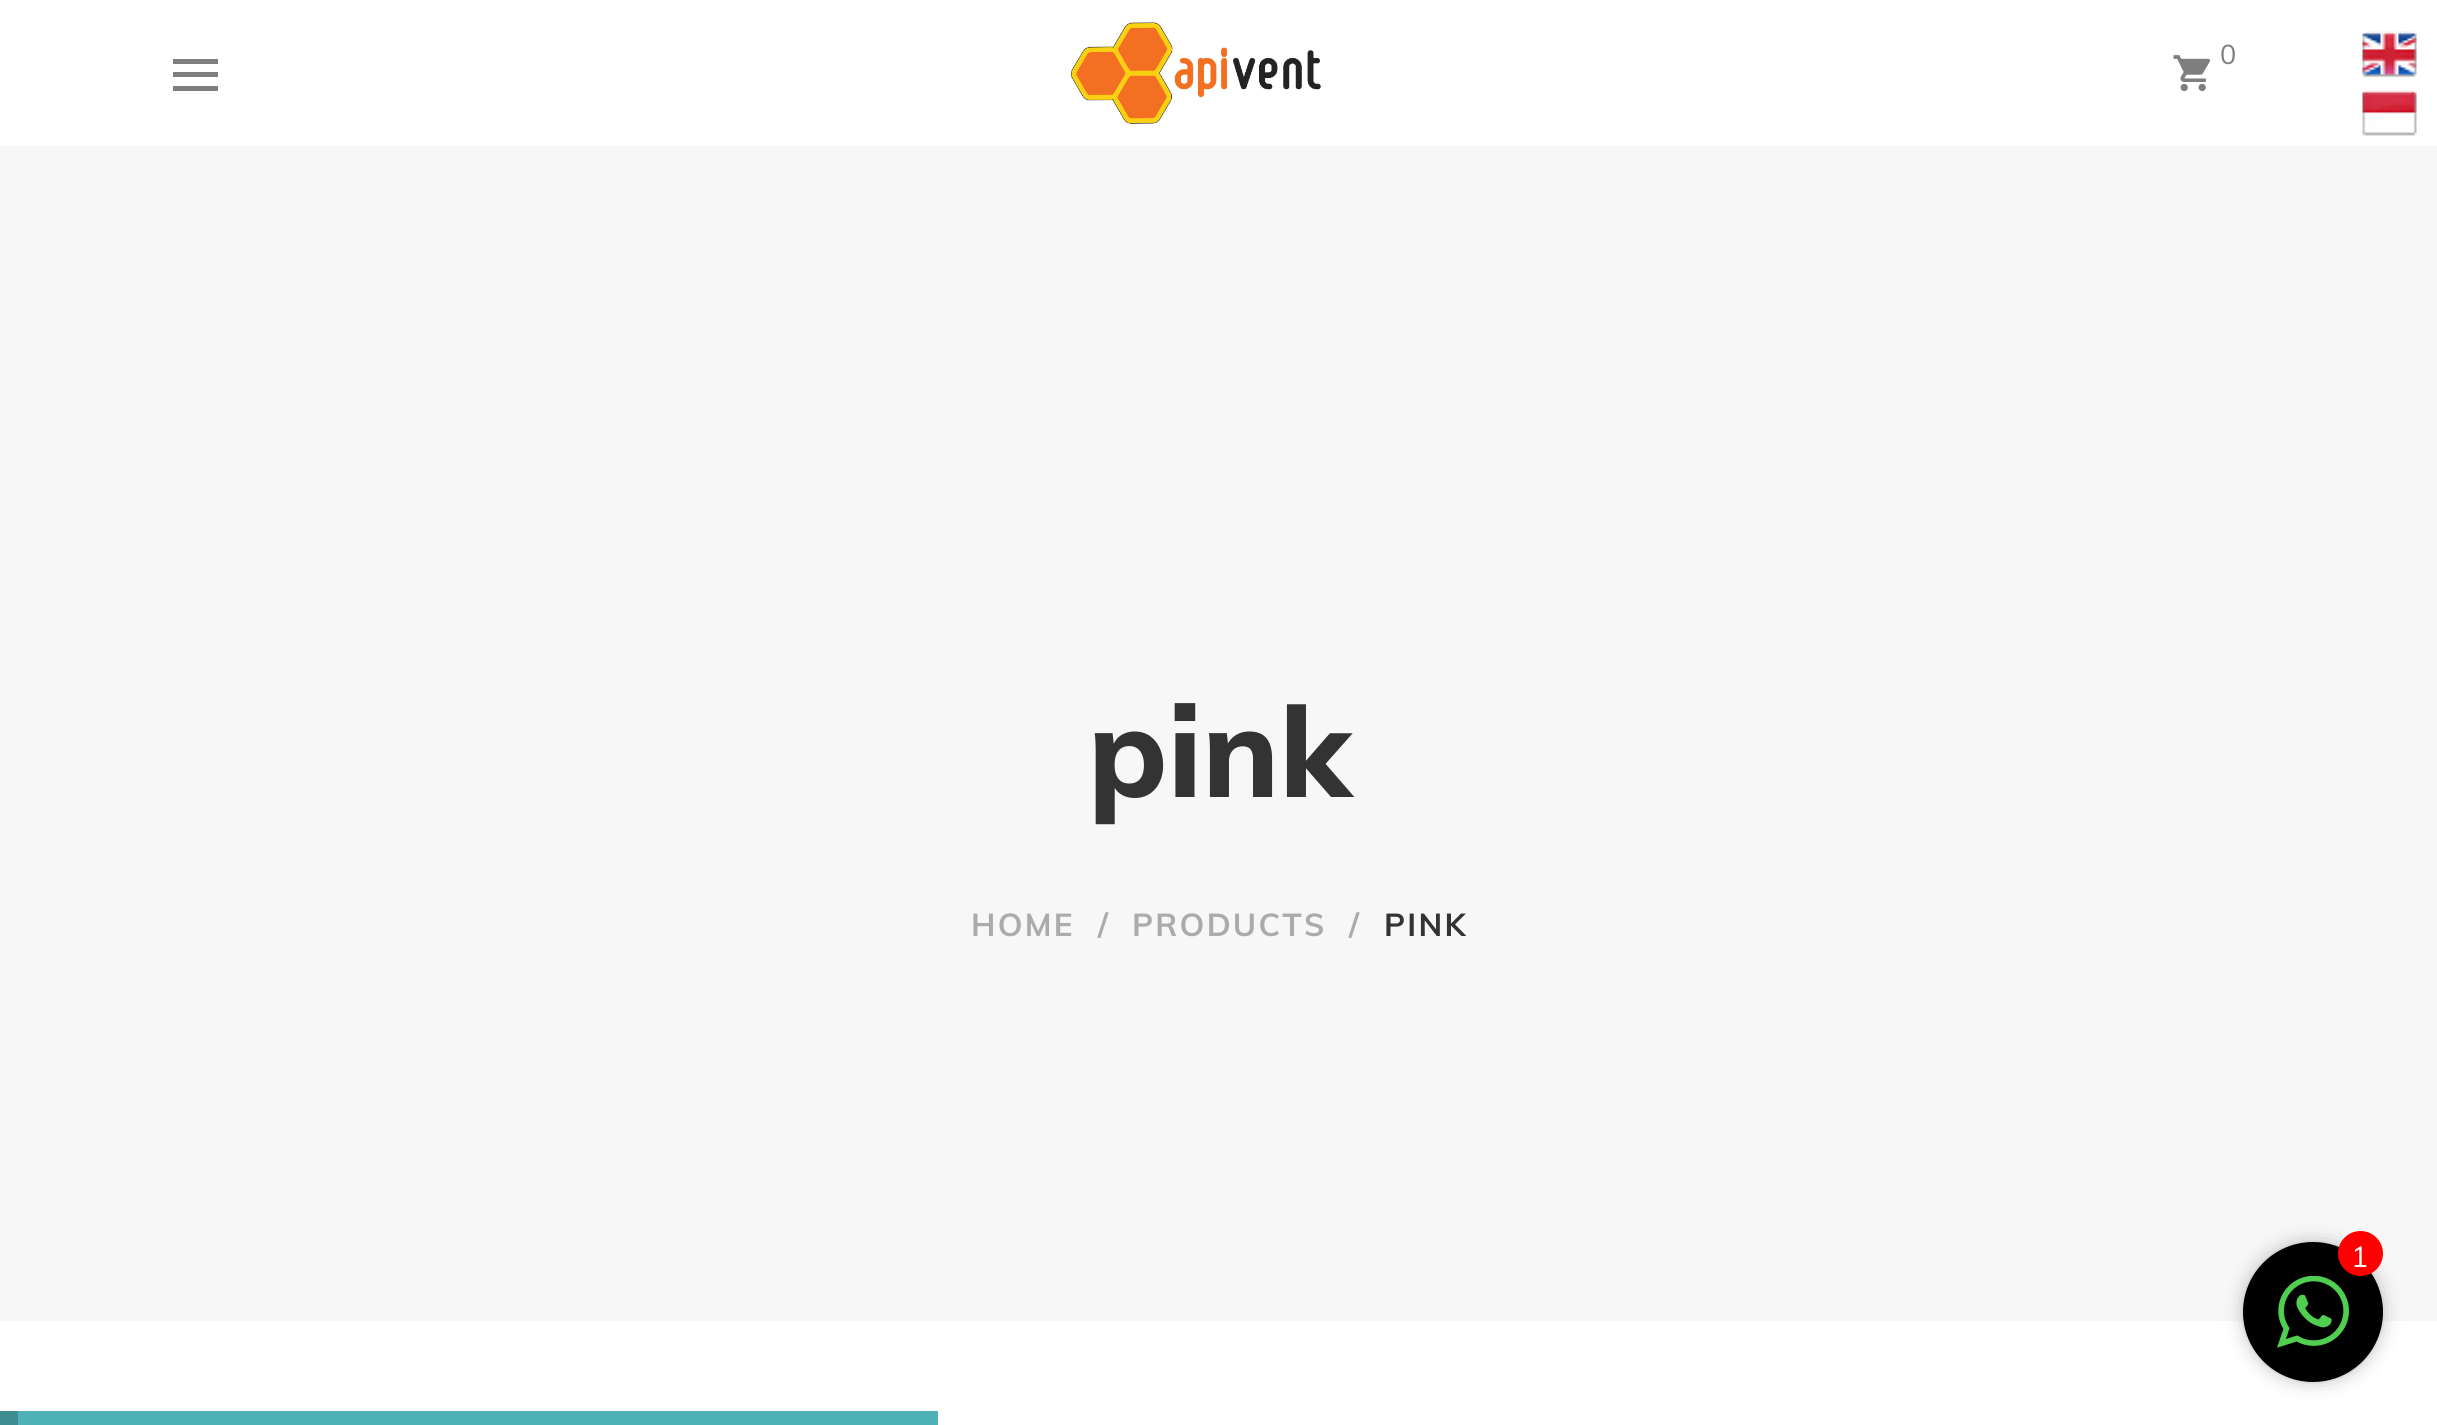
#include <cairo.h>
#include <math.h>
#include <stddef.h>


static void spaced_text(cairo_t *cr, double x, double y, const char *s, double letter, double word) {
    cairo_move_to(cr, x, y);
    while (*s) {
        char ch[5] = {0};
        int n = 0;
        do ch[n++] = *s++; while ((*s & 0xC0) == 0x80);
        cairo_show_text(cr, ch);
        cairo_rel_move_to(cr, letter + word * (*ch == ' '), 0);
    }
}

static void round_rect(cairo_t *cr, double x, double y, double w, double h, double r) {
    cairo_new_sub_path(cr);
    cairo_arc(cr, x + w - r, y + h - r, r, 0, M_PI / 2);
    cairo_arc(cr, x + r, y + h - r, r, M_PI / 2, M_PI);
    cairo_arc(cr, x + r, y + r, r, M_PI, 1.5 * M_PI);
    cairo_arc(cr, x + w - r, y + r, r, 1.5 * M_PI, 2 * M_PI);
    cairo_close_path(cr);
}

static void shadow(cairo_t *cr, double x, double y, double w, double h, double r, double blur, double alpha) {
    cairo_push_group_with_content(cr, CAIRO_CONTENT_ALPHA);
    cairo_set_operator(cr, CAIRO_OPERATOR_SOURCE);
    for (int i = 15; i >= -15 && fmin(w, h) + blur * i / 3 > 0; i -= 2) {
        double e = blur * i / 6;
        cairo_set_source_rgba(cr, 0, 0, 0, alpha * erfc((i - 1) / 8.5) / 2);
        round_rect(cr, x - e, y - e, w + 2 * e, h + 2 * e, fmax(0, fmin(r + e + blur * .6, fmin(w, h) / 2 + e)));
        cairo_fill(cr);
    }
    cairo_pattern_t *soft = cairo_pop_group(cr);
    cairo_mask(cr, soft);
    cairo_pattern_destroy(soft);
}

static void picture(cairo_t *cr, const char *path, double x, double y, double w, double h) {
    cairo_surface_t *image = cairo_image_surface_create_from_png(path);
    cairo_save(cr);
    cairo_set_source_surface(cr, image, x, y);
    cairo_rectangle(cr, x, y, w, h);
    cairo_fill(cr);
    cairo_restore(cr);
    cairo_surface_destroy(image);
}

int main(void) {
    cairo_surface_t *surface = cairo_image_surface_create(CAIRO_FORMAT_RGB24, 2437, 1425);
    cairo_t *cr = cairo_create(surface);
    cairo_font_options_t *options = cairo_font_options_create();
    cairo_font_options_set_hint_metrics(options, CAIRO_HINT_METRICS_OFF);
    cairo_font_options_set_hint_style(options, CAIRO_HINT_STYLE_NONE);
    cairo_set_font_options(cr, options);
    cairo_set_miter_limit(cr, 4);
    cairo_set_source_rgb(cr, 1, 1, 1);
    cairo_paint(cr);
    picture(cr, "img1.png", 1071, 22, 250, 102);
    picture(cr, "img2.png", 2173, 55, 37, 37);
    cairo_select_font_face(cr, "Muli", CAIRO_FONT_SLANT_NORMAL, CAIRO_FONT_WEIGHT_NORMAL);
    cairo_set_font_size(cr, 27);
    cairo_set_source_rgb(cr, 0.494, 0.494, 0.494);
    cairo_move_to(cr, 2220, 64);
    cairo_show_text(cr, "0");
    cairo_rectangle(cr, 173, 72, 45, 5);
    cairo_fill(cr);
    cairo_rectangle(cr, 173, 59, 45, 5);
    cairo_fill(cr);
    cairo_rectangle(cr, 173, 86, 45, 5);
    cairo_fill(cr);
    cairo_set_source_rgb(cr, 0.965, 0.965, 0.965);
    cairo_rectangle(cr, 0, 146, 2437, 1175);
    cairo_fill(cr);
    cairo_select_font_face(cr, "Muli ExtraBold", CAIRO_FONT_SLANT_NORMAL, CAIRO_FONT_WEIGHT_NORMAL);
    cairo_set_font_size(cr, 126);
    cairo_set_source_rgb(cr, 0.2, 0.2, 0.2);
    cairo_move_to(cr, 1088, 797);
    cairo_show_text(cr, "pink");
    cairo_select_font_face(cr, "Muli", CAIRO_FONT_SLANT_NORMAL, CAIRO_FONT_WEIGHT_BOLD);
    cairo_set_font_size(cr, 31.5);
    cairo_set_source_rgb(cr, 0.671, 0.671, 0.671);
    spaced_text(cr, 971, 936, "HOME", 2.25, 0);
    spaced_text(cr, 1098, 936, "/", 2.25, 0);
    spaced_text(cr, 1132, 936, "PRODUCTS", 2.25, 0);
    spaced_text(cr, 1349, 936, "/", 2.25, 0);
    cairo_set_source_rgb(cr, 0.2, 0.2, 0.2);
    spaced_text(cr, 1384, 936, "PINK", 2.25, 0);
    cairo_set_source_rgb(cr, 0.306, 0.694, 0.71);
    cairo_rectangle(cr, 18, 1411, 920, 14);
    cairo_fill(cr);
    cairo_set_source_rgb(cr, 0.243, 0.557, 0.569);
    cairo_rectangle(cr, 0, 1411, 18, 14);
    cairo_fill(cr);
    picture(cr, "img3.png", 2362, 31, 55, 47);
    picture(cr, "img4.png", 2362, 90, 55, 46);
    cairo_set_source_rgb(cr, 0.494, 0.494, 0.494);
    shadow(cr, 2250, 1249, 126, 126, 63, 11, 1);
    cairo_set_source_rgb(cr, 0, 0, 0);
    cairo_arc(cr, 2313, 1312, 70, 0, 2 * M_PI);
    cairo_fill(cr);
    cairo_set_source_rgb(cr, 1, 0, 0);
    cairo_arc(cr, 2360.5, 1253.5, 22.5, 0, 2 * M_PI);
    cairo_fill(cr);
    cairo_select_font_face(cr, "Muli", CAIRO_FONT_SLANT_NORMAL, CAIRO_FONT_WEIGHT_NORMAL);
    cairo_set_font_size(cr, 29);
    cairo_set_source_rgb(cr, 1, 1, 1);
    cairo_move_to(cr, 2351, 1267);
    cairo_show_text(cr, "1");
    picture(cr, "img5.png", 2277, 1276, 72, 72);
    cairo_surface_write_to_png(surface, "page.png");
    cairo_font_options_destroy(options);
    cairo_destroy(cr);
    cairo_surface_destroy(surface);
    return 0;
}
